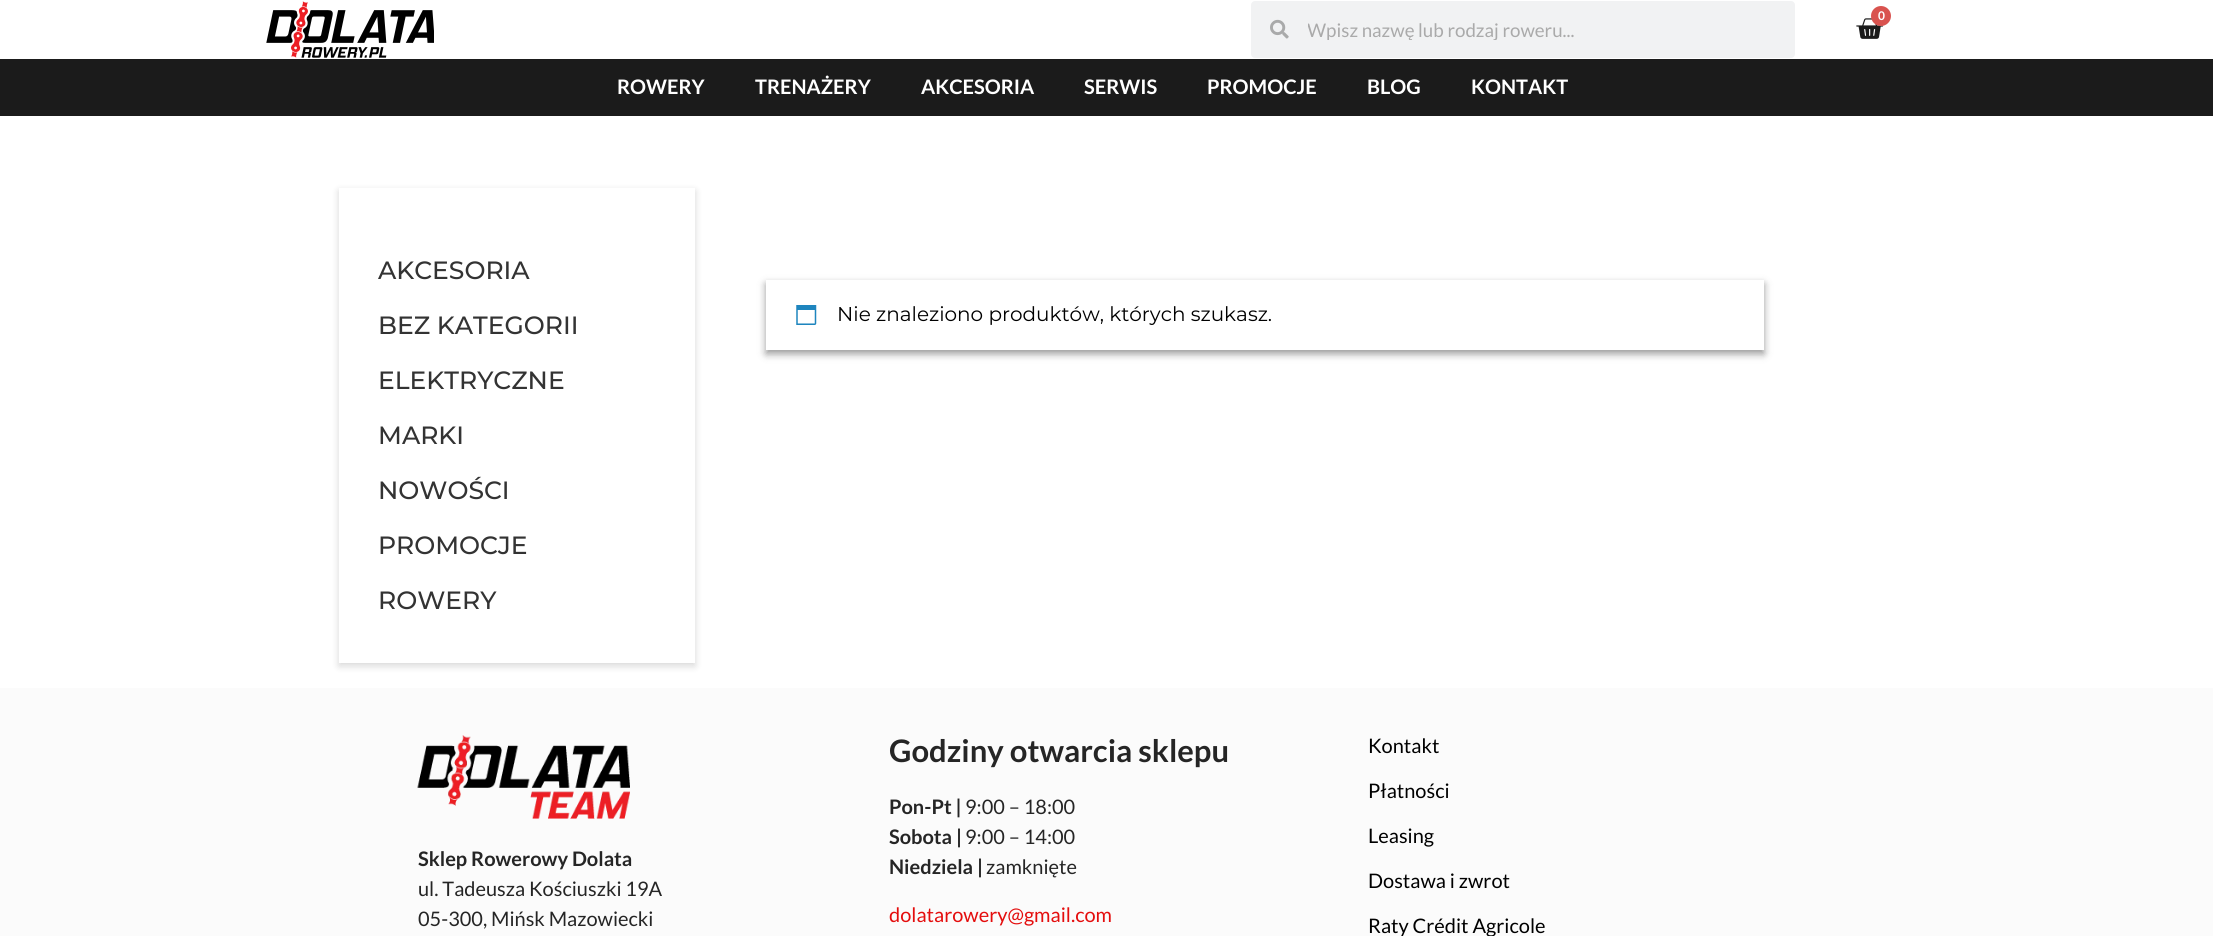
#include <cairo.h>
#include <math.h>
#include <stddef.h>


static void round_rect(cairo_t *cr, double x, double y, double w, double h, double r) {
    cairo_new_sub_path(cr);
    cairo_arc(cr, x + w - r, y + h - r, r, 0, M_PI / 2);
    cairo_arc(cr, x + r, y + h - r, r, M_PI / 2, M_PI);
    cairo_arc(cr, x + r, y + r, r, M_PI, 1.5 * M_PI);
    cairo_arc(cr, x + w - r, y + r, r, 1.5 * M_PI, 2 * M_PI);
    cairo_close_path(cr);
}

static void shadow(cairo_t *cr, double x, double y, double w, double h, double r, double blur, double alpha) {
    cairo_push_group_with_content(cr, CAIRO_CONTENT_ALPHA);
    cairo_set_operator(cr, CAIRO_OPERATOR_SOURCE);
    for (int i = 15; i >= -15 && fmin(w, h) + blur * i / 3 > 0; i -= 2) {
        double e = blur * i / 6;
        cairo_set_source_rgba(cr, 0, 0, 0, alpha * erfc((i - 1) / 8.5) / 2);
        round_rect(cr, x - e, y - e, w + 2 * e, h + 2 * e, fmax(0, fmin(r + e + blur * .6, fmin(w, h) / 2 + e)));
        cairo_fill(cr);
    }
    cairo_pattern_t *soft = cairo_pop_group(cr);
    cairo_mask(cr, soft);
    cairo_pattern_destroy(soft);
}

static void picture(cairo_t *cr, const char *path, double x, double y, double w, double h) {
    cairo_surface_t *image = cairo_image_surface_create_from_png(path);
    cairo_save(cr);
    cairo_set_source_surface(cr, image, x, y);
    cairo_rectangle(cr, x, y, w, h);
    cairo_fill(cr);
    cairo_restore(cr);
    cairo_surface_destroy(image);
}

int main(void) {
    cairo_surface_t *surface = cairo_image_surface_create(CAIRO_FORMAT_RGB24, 2213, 936);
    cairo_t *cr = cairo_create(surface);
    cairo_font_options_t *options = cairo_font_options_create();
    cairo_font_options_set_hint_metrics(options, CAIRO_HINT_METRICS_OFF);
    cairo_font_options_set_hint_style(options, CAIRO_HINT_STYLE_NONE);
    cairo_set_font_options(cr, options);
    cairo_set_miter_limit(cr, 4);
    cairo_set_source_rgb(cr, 1, 1, 1);
    cairo_paint(cr);
    picture(cr, "img1.png", 266, 1, 168, 57);
    picture(cr, "img2.png", 1856, 18, 28, 21);
    cairo_set_source_rgb(cr, 0.851, 0.325, 0.31);
    cairo_arc(cr, 1881, 16, 10, 0, 2 * M_PI);
    cairo_fill(cr);
    cairo_select_font_face(cr, "Lato", CAIRO_FONT_SLANT_NORMAL, CAIRO_FONT_WEIGHT_BOLD);
    cairo_set_font_size(cr, 12);
    cairo_set_source_rgb(cr, 1, 1, 1);
    cairo_move_to(cr, 1878, 20);
    cairo_show_text(cr, "0");
    cairo_set_source_rgb(cr, 0.945, 0.949, 0.953);
    round_rect(cr, 1251, 1, 544, 57, 4);
    cairo_fill(cr);
    picture(cr, "img3.png", 1270, 19, 19, 20);
    cairo_save(cr);
    cairo_rectangle(cr, 1308, 18, 451, 22);
    cairo_clip(cr);
    cairo_select_font_face(cr, "Lato", CAIRO_FONT_SLANT_NORMAL, CAIRO_FONT_WEIGHT_NORMAL);
    cairo_set_font_size(cr, 18.75);
    cairo_set_source_rgb(cr, 0.667, 0.667, 0.667);
    cairo_move_to(cr, 1307, 37);
    cairo_show_text(cr, "Wpisz nazwę lub rodzaj roweru...");
    cairo_restore(cr);
    cairo_set_source_rgb(cr, 0.106, 0.106, 0.106);
    cairo_rectangle(cr, 0, 59, 2213, 57);
    cairo_fill(cr);
    cairo_set_font_size(cr, 20);
    cairo_set_source_rgb(cr, 1, 1, 1);
    cairo_move_to(cr, 617, 94);
    cairo_show_text(cr, "ROWERY");
    cairo_move_to(cr, 755, 94);
    cairo_show_text(cr, "TRENAŻERY");
    cairo_move_to(cr, 921, 94);
    cairo_show_text(cr, "AKCESORIA");
    cairo_move_to(cr, 1084, 94);
    cairo_show_text(cr, "SERWIS");
    cairo_move_to(cr, 1207, 94);
    cairo_show_text(cr, "PROMOCJE");
    cairo_move_to(cr, 1367, 94);
    cairo_show_text(cr, "BLOG");
    cairo_move_to(cr, 1471, 94);
    cairo_show_text(cr, "KONTAKT");
    cairo_set_source_rgb(cr, 0, 0, 0);
    shadow(cr, 339, 191, 356, 475, 0, 4, 0.16);
    cairo_set_source_rgb(cr, 1, 1, 1);
    cairo_rectangle(cr, 339, 188, 356, 475);
    cairo_fill(cr);
    cairo_select_font_face(cr, "Montserrat Medium", CAIRO_FONT_SLANT_NORMAL, CAIRO_FONT_WEIGHT_NORMAL);
    cairo_set_font_size(cr, 25);
    cairo_set_source_rgb(cr, 0.2, 0.2, 0.2);
    cairo_move_to(cr, 378, 279);
    cairo_show_text(cr, "AKCESORIA");
    cairo_move_to(cr, 378, 334);
    cairo_show_text(cr, "BEZ KATEGORII");
    cairo_move_to(cr, 378, 389);
    cairo_show_text(cr, "ELEKTRYCZNE");
    cairo_move_to(cr, 378, 444);
    cairo_show_text(cr, "MARKI");
    cairo_move_to(cr, 378, 499);
    cairo_show_text(cr, "NOWOŚCI");
    cairo_move_to(cr, 378, 554);
    cairo_show_text(cr, "PROMOCJE");
    cairo_move_to(cr, 378, 609);
    cairo_show_text(cr, "ROWERY");
    cairo_set_source_rgb(cr, 0, 0, 0);
    shadow(cr, 766, 284, 998, 70, 0, 4, 0.4);
    cairo_set_source_rgb(cr, 1, 1, 1);
    cairo_rectangle(cr, 766, 280, 998, 70);
    cairo_fill(cr);
    picture(cr, "img4.png", 796, 305, 21, 20);
    cairo_select_font_face(cr, "Montserrat", CAIRO_FONT_SLANT_NORMAL, CAIRO_FONT_WEIGHT_NORMAL);
    cairo_set_font_size(cr, 20);
    cairo_set_source_rgb(cr, 0, 0, 0);
    cairo_move_to(cr, 837, 321);
    cairo_show_text(cr, "Nie znaleziono produktów, których szukasz.");
    cairo_set_source_rgb(cr, 0.984, 0.984, 0.984);
    cairo_rectangle(cr, 0, 688, 2213, 248);
    cairo_fill(cr);
    picture(cr, "img5.png", 417, 735, 213, 84);
    cairo_select_font_face(cr, "Lato", CAIRO_FONT_SLANT_NORMAL, CAIRO_FONT_WEIGHT_BOLD);
    cairo_set_source_rgb(cr, 0.145, 0.145, 0.145);
    cairo_move_to(cr, 418, 866);
    cairo_show_text(cr, "Sklep Rowerowy Dolata");
    cairo_select_font_face(cr, "Lato", CAIRO_FONT_SLANT_NORMAL, CAIRO_FONT_WEIGHT_NORMAL);
    cairo_move_to(cr, 418, 896);
    cairo_show_text(cr, "ul. Tadeusza Kościuszki 19A");
    cairo_move_to(cr, 418, 926);
    cairo_show_text(cr, "05-300, Mińsk Mazowiecki");
    cairo_select_font_face(cr, "Lato", CAIRO_FONT_SLANT_NORMAL, CAIRO_FONT_WEIGHT_BOLD);
    cairo_set_font_size(cr, 31);
    cairo_move_to(cr, 889, 762);
    cairo_show_text(cr, "Godziny otwarcia sklepu");
    cairo_set_font_size(cr, 20);
    cairo_move_to(cr, 889, 814);
    cairo_show_text(cr, "Pon-Pt |");
    cairo_select_font_face(cr, "Lato", CAIRO_FONT_SLANT_NORMAL, CAIRO_FONT_WEIGHT_NORMAL);
    cairo_move_to(cr, 965, 814);
    cairo_show_text(cr, "9:00 – 18:00");
    cairo_select_font_face(cr, "Lato", CAIRO_FONT_SLANT_NORMAL, CAIRO_FONT_WEIGHT_BOLD);
    cairo_move_to(cr, 889, 844);
    cairo_show_text(cr, "Sobota |");
    cairo_select_font_face(cr, "Lato", CAIRO_FONT_SLANT_NORMAL, CAIRO_FONT_WEIGHT_NORMAL);
    cairo_move_to(cr, 965, 844);
    cairo_show_text(cr, "9:00 – 14:00");
    cairo_select_font_face(cr, "Lato", CAIRO_FONT_SLANT_NORMAL, CAIRO_FONT_WEIGHT_BOLD);
    cairo_move_to(cr, 889, 874);
    cairo_show_text(cr, "Niedziela |");
    cairo_select_font_face(cr, "Lato", CAIRO_FONT_SLANT_NORMAL, CAIRO_FONT_WEIGHT_NORMAL);
    cairo_move_to(cr, 986, 874);
    cairo_show_text(cr, "zamknięte");
    cairo_set_source_rgb(cr, 0.894, 0.051, 0.051);
    cairo_move_to(cr, 889, 922);
    cairo_show_text(cr, "dolatarowery@gmail.com");
    cairo_set_source_rgb(cr, 0, 0, 0);
    cairo_move_to(cr, 1368, 753);
    cairo_show_text(cr, "Kontakt");
    cairo_move_to(cr, 1368, 798);
    cairo_show_text(cr, "Płatności");
    cairo_move_to(cr, 1368, 843);
    cairo_show_text(cr, "Leasing");
    cairo_move_to(cr, 1368, 888);
    cairo_show_text(cr, "Dostawa i zwrot");
    cairo_move_to(cr, 1368, 933);
    cairo_show_text(cr, "Raty Crédit Agricole");
    cairo_surface_write_to_png(surface, "page.png");
    cairo_font_options_destroy(options);
    cairo_destroy(cr);
    cairo_surface_destroy(surface);
    return 0;
}
